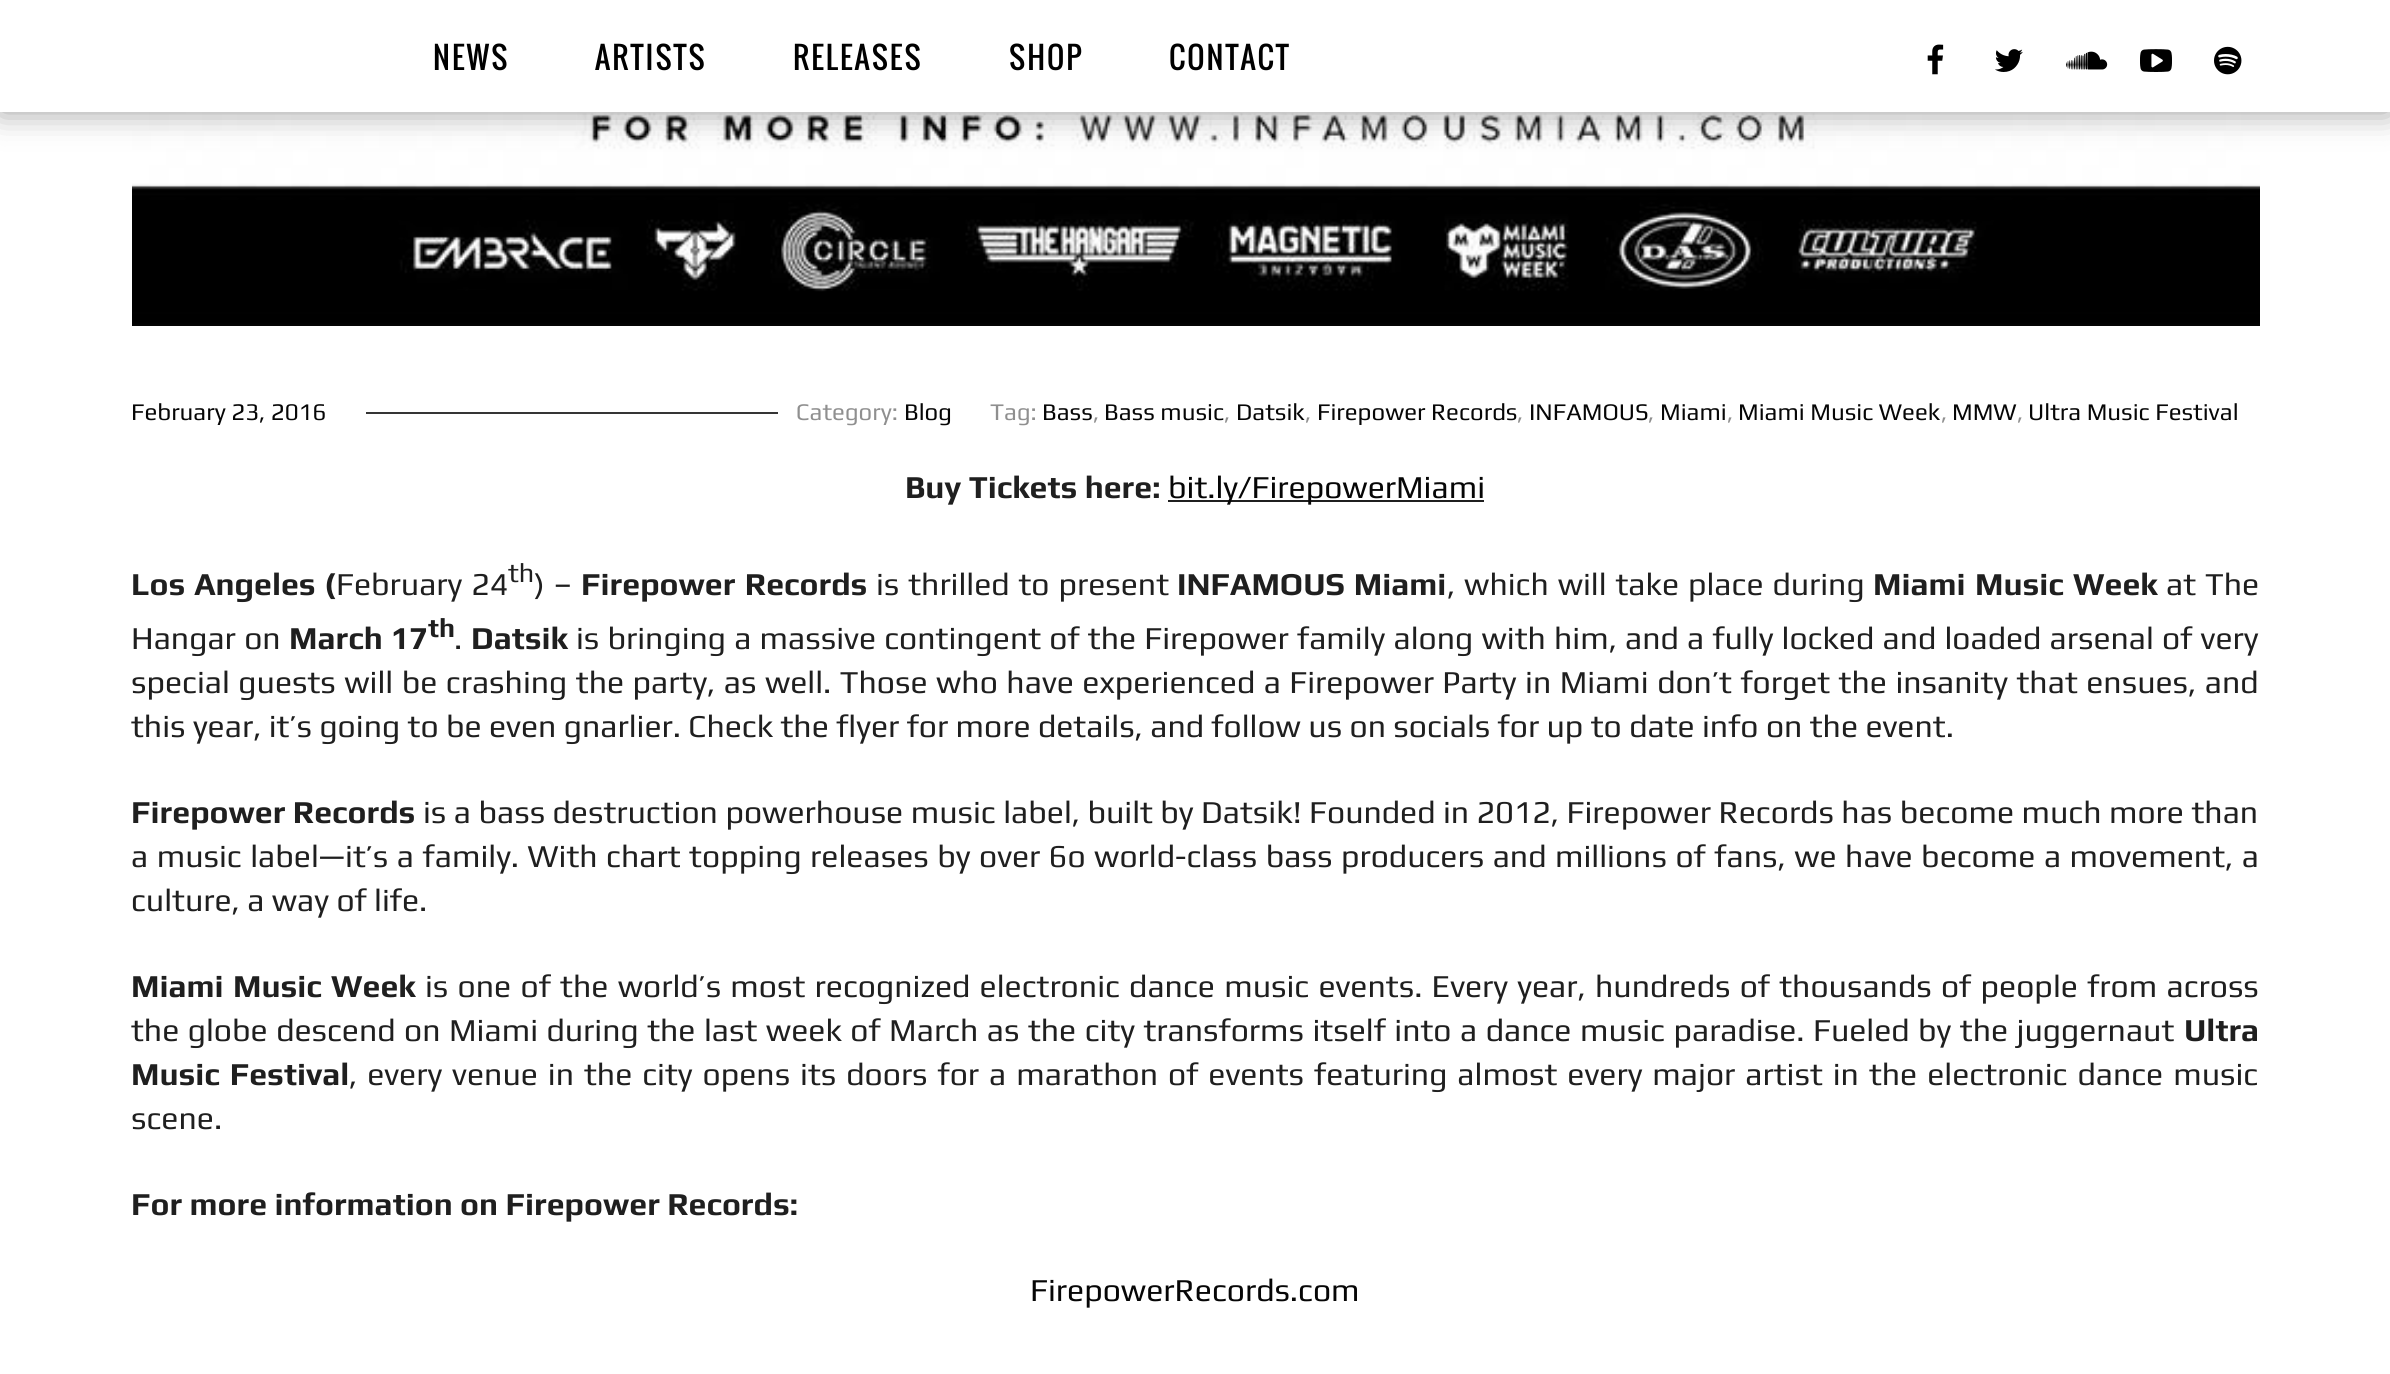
#include <cairo.h>
#include <math.h>
#include <stddef.h>


static void spaced_text(cairo_t *cr, double x, double y, const char *s, double letter, double word) {
    cairo_move_to(cr, x, y);
    while (*s) {
        char ch[5] = {0};
        int n = 0;
        do ch[n++] = *s++; while ((*s & 0xC0) == 0x80);
        cairo_show_text(cr, ch);
        cairo_rel_move_to(cr, letter + word * (*ch == ' '), 0);
    }
}

static void round_rect(cairo_t *cr, double x, double y, double w, double h, double r) {
    cairo_new_sub_path(cr);
    cairo_arc(cr, x + w - r, y + h - r, r, 0, M_PI / 2);
    cairo_arc(cr, x + r, y + h - r, r, M_PI / 2, M_PI);
    cairo_arc(cr, x + r, y + r, r, M_PI, 1.5 * M_PI);
    cairo_arc(cr, x + w - r, y + r, r, 1.5 * M_PI, 2 * M_PI);
    cairo_close_path(cr);
}

static void shadow(cairo_t *cr, double x, double y, double w, double h, double r, double blur, double alpha) {
    cairo_push_group_with_content(cr, CAIRO_CONTENT_ALPHA);
    cairo_set_operator(cr, CAIRO_OPERATOR_SOURCE);
    for (int i = 15; i >= -15 && fmin(w, h) + blur * i / 3 > 0; i -= 2) {
        double e = blur * i / 6;
        cairo_set_source_rgba(cr, 0, 0, 0, alpha * erfc((i - 1) / 8.5) / 2);
        round_rect(cr, x - e, y - e, w + 2 * e, h + 2 * e, fmax(0, fmin(r + e + blur * .6, fmin(w, h) / 2 + e)));
        cairo_fill(cr);
    }
    cairo_pattern_t *soft = cairo_pop_group(cr);
    cairo_mask(cr, soft);
    cairo_pattern_destroy(soft);
}

static void picture(cairo_t *cr, const char *path, double x, double y, double w, double h) {
    cairo_surface_t *image = cairo_image_surface_create_from_png(path);
    cairo_save(cr);
    cairo_set_source_surface(cr, image, x, y);
    cairo_rectangle(cr, x, y, w, h);
    cairo_fill(cr);
    cairo_restore(cr);
    cairo_surface_destroy(image);
}

int main(void) {
    cairo_surface_t *surface = cairo_image_surface_create(CAIRO_FORMAT_RGB24, 2390, 1374);
    cairo_t *cr = cairo_create(surface);
    cairo_font_options_t *options = cairo_font_options_create();
    cairo_font_options_set_hint_metrics(options, CAIRO_HINT_METRICS_OFF);
    cairo_font_options_set_hint_style(options, CAIRO_HINT_STYLE_NONE);
    cairo_set_font_options(cr, options);
    cairo_set_miter_limit(cr, 4);
    cairo_set_source_rgb(cr, 1, 1, 1);
    cairo_paint(cr);
    picture(cr, "img6.png", 132, 112, 2128, 214);
    cairo_set_source_rgb(cr, 0, 0, 0);
    shadow(cr, 0, 0, 2390, 112, 0, 16, 0.4);
    cairo_set_source_rgb(cr, 1, 1, 1);
    cairo_rectangle(cr, 0, 0, 2390, 112);
    cairo_fill(cr);
    cairo_select_font_face(cr, "Oswald", CAIRO_FONT_SLANT_NORMAL, CAIRO_FONT_WEIGHT_NORMAL);
    cairo_set_font_size(cr, 30);
    cairo_set_source_rgb(cr, 0, 0, 0);
    spaced_text(cr, 433, 70, "NEWS", 2, 0);
    spaced_text(cr, 595, 70, "ARTISTS", 2, 0);
    spaced_text(cr, 793, 70, "RELEASES", 2, 0);
    spaced_text(cr, 1009, 70, "SHOP", 2, 0);
    spaced_text(cr, 1169, 70, "CONTACT", 2, 0);
    picture(cr, "img1.png", 1927, 44, 17, 31);
    picture(cr, "img2.png", 1995, 49, 28, 23);
    picture(cr, "img3.png", 2066, 51, 42, 19);
    picture(cr, "img4.png", 2140, 49, 32, 23);
    picture(cr, "img5.png", 2214, 46, 28, 29);
    cairo_select_font_face(cr, "Play", CAIRO_FONT_SLANT_NORMAL, CAIRO_FONT_WEIGHT_NORMAL);
    cairo_set_font_size(cr, 24);
    cairo_set_source_rgb(cr, 0.027, 0.027, 0.027);
    cairo_move_to(cr, 131, 420);
    cairo_show_text(cr, "February 23, 2016");
    cairo_set_source_rgb(cr, 0.208, 0.208, 0.208);
    cairo_rectangle(cr, 366, 412, 412, 2);
    cairo_fill(cr);
    cairo_set_source_rgb(cr, 0.561, 0.561, 0.561);
    cairo_move_to(cr, 796, 420);
    cairo_show_text(cr, "Category:");
    cairo_set_source_rgb(cr, 0.027, 0.027, 0.027);
    cairo_move_to(cr, 904, 420);
    cairo_show_text(cr, "Blog");
    cairo_set_source_rgb(cr, 0.561, 0.561, 0.561);
    cairo_move_to(cr, 990, 420);
    cairo_show_text(cr, "Tag:");
    cairo_set_source_rgb(cr, 0.027, 0.027, 0.027);
    cairo_move_to(cr, 1042, 420);
    cairo_show_text(cr, "Bass");
    cairo_set_source_rgb(cr, 0.561, 0.561, 0.561);
    cairo_move_to(cr, 1093, 420);
    cairo_show_text(cr, ",");
    cairo_set_source_rgb(cr, 0.027, 0.027, 0.027);
    cairo_move_to(cr, 1104, 420);
    cairo_show_text(cr, "Bass music");
    cairo_set_source_rgb(cr, 0.561, 0.561, 0.561);
    cairo_move_to(cr, 1224, 420);
    cairo_show_text(cr, ",");
    cairo_set_source_rgb(cr, 0.027, 0.027, 0.027);
    cairo_move_to(cr, 1236, 420);
    cairo_show_text(cr, "Datsik");
    cairo_set_source_rgb(cr, 0.561, 0.561, 0.561);
    cairo_move_to(cr, 1305, 420);
    cairo_show_text(cr, ",");
    cairo_set_source_rgb(cr, 0.027, 0.027, 0.027);
    cairo_move_to(cr, 1317, 420);
    cairo_show_text(cr, "Firepower Records");
    cairo_set_source_rgb(cr, 0.561, 0.561, 0.561);
    cairo_move_to(cr, 1517, 420);
    cairo_show_text(cr, ",");
    cairo_set_source_rgb(cr, 0.027, 0.027, 0.027);
    cairo_move_to(cr, 1529, 420);
    cairo_show_text(cr, "INFAMOUS");
    cairo_set_source_rgb(cr, 0.561, 0.561, 0.561);
    cairo_move_to(cr, 1648, 420);
    cairo_show_text(cr, ",");
    cairo_set_source_rgb(cr, 0.027, 0.027, 0.027);
    cairo_move_to(cr, 1660, 420);
    cairo_show_text(cr, "Miami");
    cairo_set_source_rgb(cr, 0.561, 0.561, 0.561);
    cairo_move_to(cr, 1727, 420);
    cairo_show_text(cr, ",");
    cairo_set_source_rgb(cr, 0.027, 0.027, 0.027);
    cairo_move_to(cr, 1738, 420);
    cairo_show_text(cr, "Miami Music Week");
    cairo_set_source_rgb(cr, 0.561, 0.561, 0.561);
    cairo_move_to(cr, 1941, 420);
    cairo_show_text(cr, ",");
    cairo_set_source_rgb(cr, 0.027, 0.027, 0.027);
    cairo_move_to(cr, 1952, 420);
    cairo_show_text(cr, "MMW");
    cairo_set_source_rgb(cr, 0.561, 0.561, 0.561);
    cairo_move_to(cr, 2017, 420);
    cairo_show_text(cr, ",");
    cairo_set_source_rgb(cr, 0.027, 0.027, 0.027);
    cairo_move_to(cr, 2028, 420);
    cairo_show_text(cr, "Ultra Music Festival");
    cairo_select_font_face(cr, "Play", CAIRO_FONT_SLANT_NORMAL, CAIRO_FONT_WEIGHT_BOLD);
    cairo_set_font_size(cr, 32);
    cairo_set_source_rgb(cr, 0.122, 0.122, 0.122);
    cairo_move_to(cr, 905, 498);
    cairo_show_text(cr, "Buy Tickets here:");
    cairo_rectangle(cr, 1168, 500, 316, 2);
    cairo_fill(cr);
    cairo_select_font_face(cr, "Play", CAIRO_FONT_SLANT_NORMAL, CAIRO_FONT_WEIGHT_NORMAL);
    cairo_set_source_rgb(cr, 0.027, 0.027, 0.027);
    cairo_move_to(cr, 1168, 498);
    cairo_show_text(cr, "bit.ly/FirepowerMiami");
    cairo_select_font_face(cr, "Play", CAIRO_FONT_SLANT_NORMAL, CAIRO_FONT_WEIGHT_BOLD);
    cairo_set_source_rgb(cr, 0.122, 0.122, 0.122);
    spaced_text(cr, 131, 595, "Los Angeles (", 0, 1.5);
    cairo_select_font_face(cr, "Play", CAIRO_FONT_SLANT_NORMAL, CAIRO_FONT_WEIGHT_NORMAL);
    spaced_text(cr, 336, 595, "February 24", 0, 1.5);
    cairo_set_font_size(cr, 27);
    cairo_move_to(cr, 508, 582);
    cairo_show_text(cr, "th");
    cairo_set_font_size(cr, 32);
    spaced_text(cr, 534, 595, ") –", 0, 1.5);
    cairo_select_font_face(cr, "Play", CAIRO_FONT_SLANT_NORMAL, CAIRO_FONT_WEIGHT_BOLD);
    spaced_text(cr, 581, 595, "Firepower Records", 0, 2);
    cairo_select_font_face(cr, "Play", CAIRO_FONT_SLANT_NORMAL, CAIRO_FONT_WEIGHT_NORMAL);
    spaced_text(cr, 876, 595, "is thrilled to present", 0, 1.5);
    cairo_select_font_face(cr, "Play", CAIRO_FONT_SLANT_NORMAL, CAIRO_FONT_WEIGHT_BOLD);
    spaced_text(cr, 1177, 595, "INFAMOUS Miami", 0, 1.5);
    cairo_select_font_face(cr, "Play", CAIRO_FONT_SLANT_NORMAL, CAIRO_FONT_WEIGHT_NORMAL);
    spaced_text(cr, 1447, 595, ", which will take place during", 0, 1.5);
    cairo_select_font_face(cr, "Play", CAIRO_FONT_SLANT_NORMAL, CAIRO_FONT_WEIGHT_BOLD);
    spaced_text(cr, 1873, 595, "Miami Music Week", 0, 2);
    cairo_select_font_face(cr, "Play", CAIRO_FONT_SLANT_NORMAL, CAIRO_FONT_WEIGHT_NORMAL);
    spaced_text(cr, 2166, 595, "at The", 0, 1.5);
    spaced_text(cr, 131, 649, "Hangar on", 0, 1);
    cairo_select_font_face(cr, "Play", CAIRO_FONT_SLANT_NORMAL, CAIRO_FONT_WEIGHT_BOLD);
    spaced_text(cr, 289, 649, "March 17", 0, 1);
    cairo_set_font_size(cr, 27);
    cairo_move_to(cr, 428, 637);
    cairo_show_text(cr, "th");
    cairo_select_font_face(cr, "Play", CAIRO_FONT_SLANT_NORMAL, CAIRO_FONT_WEIGHT_NORMAL);
    cairo_set_font_size(cr, 32);
    cairo_move_to(cr, 454, 649);
    cairo_show_text(cr, ".");
    cairo_select_font_face(cr, "Play", CAIRO_FONT_SLANT_NORMAL, CAIRO_FONT_WEIGHT_BOLD);
    cairo_move_to(cr, 471, 649);
    cairo_show_text(cr, "Datsik");
    cairo_select_font_face(cr, "Play", CAIRO_FONT_SLANT_NORMAL, CAIRO_FONT_WEIGHT_NORMAL);
    spaced_text(cr, 576, 649, "is bringing a massive contingent of the Firepower family along with him, and a fully locked and loaded arsenal of very", 0, 0.8);
    spaced_text(cr, 131, 693, "special guests will be crashing the party, as well. Those who have experienced a Firepower Party in Miami don’t forget the insanity that ensues, and", 0, 1.1);
    cairo_move_to(cr, 131, 737);
    cairo_show_text(cr, "this year, it’s going to be even gnarlier. Check the flyer for more details, and follow us on socials for up to date info on the event.");
    cairo_select_font_face(cr, "Play", CAIRO_FONT_SLANT_NORMAL, CAIRO_FONT_WEIGHT_BOLD);
    cairo_move_to(cr, 131, 823);
    cairo_show_text(cr, "Firepower Records");
    cairo_select_font_face(cr, "Play", CAIRO_FONT_SLANT_NORMAL, CAIRO_FONT_WEIGHT_NORMAL);
    spaced_text(cr, 423, 823, "is a bass destruction powerhouse music label, built by Datsik! Founded in 2012, Firepower Records has become much more than", 0, 0.1);
    spaced_text(cr, 131, 867, "a music label—it’s a family. With chart topping releases by over 6o world-class bass producers and millions of fans, we have become a movement, a", 0, 1.15);
    cairo_move_to(cr, 131, 911);
    cairo_show_text(cr, "culture, a way of life.");
    cairo_select_font_face(cr, "Play", CAIRO_FONT_SLANT_NORMAL, CAIRO_FONT_WEIGHT_BOLD);
    spaced_text(cr, 131, 997, "Miami Music Week", 0, 2);
    cairo_select_font_face(cr, "Play", CAIRO_FONT_SLANT_NORMAL, CAIRO_FONT_WEIGHT_NORMAL);
    spaced_text(cr, 425, 997, "is one of the world’s most recognized electronic dance music events. Every year, hundreds of thousands of people from across", 0, 1.9);
    spaced_text(cr, 131, 1041, "the globe descend on Miami during the last week of March as the city transforms itself into a dance music paradise. Fueled by the juggernaut", 0, 1.1);
    cairo_select_font_face(cr, "Play", CAIRO_FONT_SLANT_NORMAL, CAIRO_FONT_WEIGHT_BOLD);
    cairo_move_to(cr, 2184, 1041);
    cairo_show_text(cr, "Ultra");
    spaced_text(cr, 131, 1085, "Music Festival", 0, 2.6);
    cairo_select_font_face(cr, "Play", CAIRO_FONT_SLANT_NORMAL, CAIRO_FONT_WEIGHT_NORMAL);
    spaced_text(cr, 349, 1085, ", every venue in the city opens its doors for a marathon of events featuring almost every major artist in the electronic dance music", 0, 2.6);
    cairo_move_to(cr, 131, 1129);
    cairo_show_text(cr, "scene.");
    cairo_select_font_face(cr, "Play", CAIRO_FONT_SLANT_NORMAL, CAIRO_FONT_WEIGHT_BOLD);
    cairo_move_to(cr, 131, 1215);
    cairo_show_text(cr, "For more information on Firepower Records:");
    cairo_select_font_face(cr, "Play", CAIRO_FONT_SLANT_NORMAL, CAIRO_FONT_WEIGHT_NORMAL);
    cairo_set_source_rgb(cr, 0.027, 0.027, 0.027);
    cairo_move_to(cr, 1030, 1301);
    cairo_show_text(cr, "FirepowerRecords.com");
    cairo_surface_write_to_png(surface, "page.png");
    cairo_font_options_destroy(options);
    cairo_destroy(cr);
    cairo_surface_destroy(surface);
    return 0;
}
